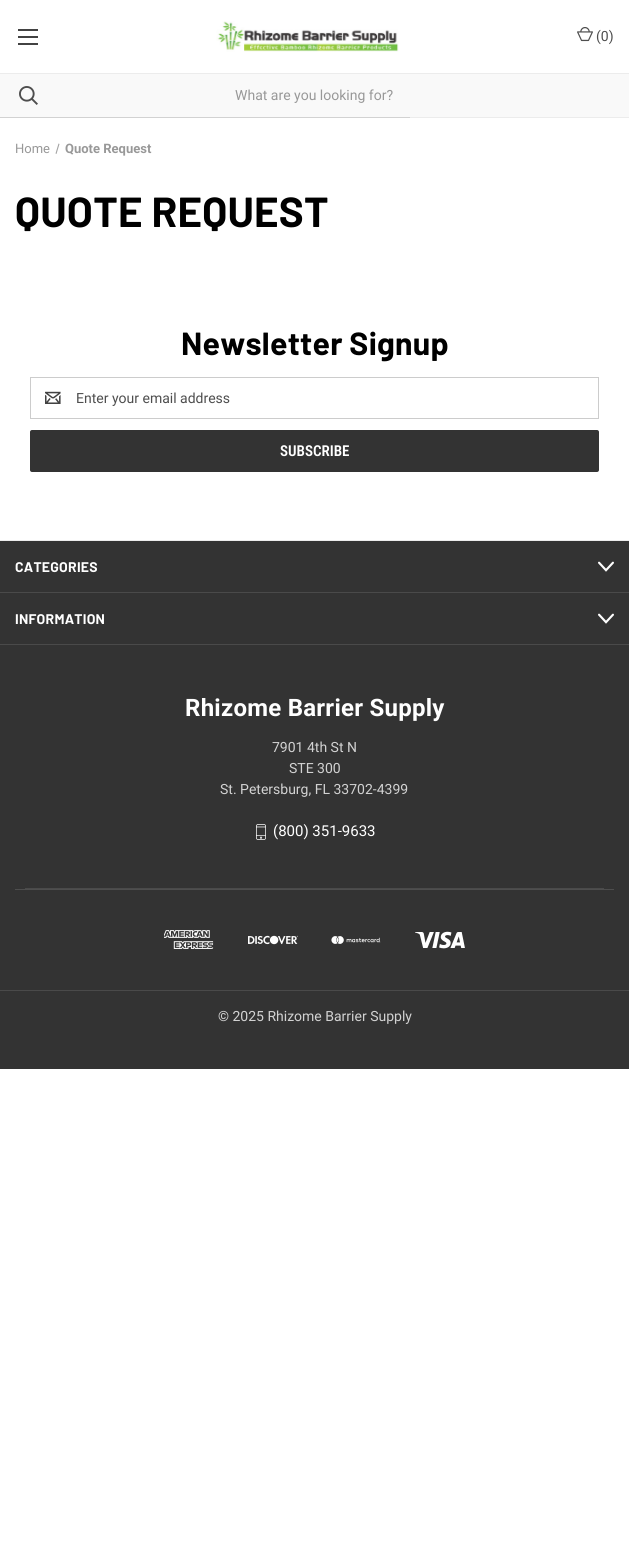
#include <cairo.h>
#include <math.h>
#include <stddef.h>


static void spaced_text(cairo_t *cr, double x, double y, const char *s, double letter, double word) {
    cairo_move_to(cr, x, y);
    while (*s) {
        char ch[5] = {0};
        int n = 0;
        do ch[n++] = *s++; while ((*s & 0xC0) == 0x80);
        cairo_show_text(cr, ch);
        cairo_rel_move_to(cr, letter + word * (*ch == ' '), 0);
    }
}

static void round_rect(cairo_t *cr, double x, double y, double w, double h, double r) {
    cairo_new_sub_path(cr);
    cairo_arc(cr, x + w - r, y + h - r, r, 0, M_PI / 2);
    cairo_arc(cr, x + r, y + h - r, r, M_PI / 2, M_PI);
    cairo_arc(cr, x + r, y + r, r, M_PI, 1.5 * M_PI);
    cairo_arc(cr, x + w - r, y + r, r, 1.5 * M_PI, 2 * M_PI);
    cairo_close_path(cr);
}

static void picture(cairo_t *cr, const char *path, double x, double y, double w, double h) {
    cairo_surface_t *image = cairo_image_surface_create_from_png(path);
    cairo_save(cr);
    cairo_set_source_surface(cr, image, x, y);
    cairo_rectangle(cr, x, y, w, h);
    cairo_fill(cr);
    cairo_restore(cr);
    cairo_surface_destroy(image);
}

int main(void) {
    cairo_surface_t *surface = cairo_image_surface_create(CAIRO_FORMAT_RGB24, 629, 1565);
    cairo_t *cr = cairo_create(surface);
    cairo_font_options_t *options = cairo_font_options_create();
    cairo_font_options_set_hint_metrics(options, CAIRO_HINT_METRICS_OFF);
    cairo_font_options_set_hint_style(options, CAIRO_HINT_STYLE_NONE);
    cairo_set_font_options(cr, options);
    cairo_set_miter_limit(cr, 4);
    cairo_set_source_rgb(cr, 1, 1, 1);
    cairo_paint(cr);
    cairo_set_source_rgb(cr, 0.922, 0.922, 0.922);
    cairo_rectangle(cr, 410, 117, 219, 1);
    cairo_fill(cr);
    cairo_set_source_rgb(cr, 0.259, 0.259, 0.259);
    cairo_rectangle(cr, 18, 36, 20, 2);
    cairo_fill(cr);
    cairo_rectangle(cr, 18, 29, 20, 2);
    cairo_fill(cr);
    cairo_rectangle(cr, 18, 43, 20, 2);
    cairo_fill(cr);
    picture(cr, "img1.png", 216, 21, 183, 31);
    picture(cr, "img2.png", 577, 27, 16, 15);
    cairo_select_font_face(cr, "Roboto", CAIRO_FONT_SLANT_NORMAL, CAIRO_FONT_WEIGHT_NORMAL);
    cairo_set_font_size(cr, 14);
    cairo_set_source_rgb(cr, 0.306, 0.306, 0.306);
    cairo_move_to(cr, 596, 41);
    cairo_show_text(cr, "(0)");
    cairo_set_source_rgb(cr, 0.976, 0.976, 0.976);
    cairo_rectangle(cr, 0, 74, 629, 43);
    cairo_fill(cr);
    picture(cr, "img3.png", 19, 86, 19, 19);
    cairo_set_source_rgb(cr, 0.922, 0.922, 0.922);
    cairo_rectangle(cr, 0, 73, 629, 1);
    cairo_fill(cr);
    cairo_set_source_rgb(cr, 0.596, 0.596, 0.596);
    cairo_move_to(cr, 235, 100);
    cairo_show_text(cr, "What are you looking for?");
    cairo_set_source_rgb(cr, 0.824, 0.824, 0.824);
    cairo_rectangle(cr, 0, 117, 410, 1);
    cairo_fill(cr);
    cairo_set_font_size(cr, 13);
    cairo_set_source_rgb(cr, 0.596, 0.596, 0.596);
    cairo_move_to(cr, 15, 153);
    cairo_show_text(cr, "Home");
    cairo_set_source_rgb(cr, 0.639, 0.639, 0.639);
    cairo_new_path(cr);
    cairo_move_to(cr, 58.5, 143.5);
    cairo_line_to(cr, 59.5, 144);
    cairo_line_to(cr, 56.5, 154);
    cairo_line_to(cr, 55.5, 153.5);
    cairo_close_path(cr);
    cairo_fill(cr);
    cairo_select_font_face(cr, "Roboto", CAIRO_FONT_SLANT_NORMAL, CAIRO_FONT_WEIGHT_BOLD);
    cairo_set_source_rgb(cr, 0.596, 0.596, 0.596);
    cairo_move_to(cr, 65, 153);
    cairo_show_text(cr, "Quote Request");
    cairo_select_font_face(cr, "Barlow", CAIRO_FONT_SLANT_NORMAL, CAIRO_FONT_WEIGHT_BOLD);
    cairo_set_font_size(cr, 42);
    cairo_set_source_rgb(cr, 0, 0, 0);
    spaced_text(cr, 15, 227, "QUOTE REQUEST", 0.25, 0);
    cairo_set_font_size(cr, 32);
    spaced_text(cr, 181, 355, "Newsletter Signup", 0.25, 0);
    cairo_rectangle(cr, 30.5, 377.5, 568, 41);
    cairo_set_source_rgb(cr, 0.8, 0.8, 0.8);
    cairo_set_line_width(cr, 1);
    cairo_stroke(cr);
    picture(cr, "img4.png", 45, 391, 16, 13);
    cairo_select_font_face(cr, "Roboto", CAIRO_FONT_SLANT_NORMAL, CAIRO_FONT_WEIGHT_NORMAL);
    cairo_set_font_size(cr, 14);
    cairo_set_source_rgb(cr, 0.306, 0.306, 0.306);
    cairo_move_to(cr, 76, 403);
    cairo_show_text(cr, "Enter your email address");
    cairo_set_source_rgb(cr, 0.2, 0.2, 0.2);
    round_rect(cr, 30, 430, 569, 42, 2);
    cairo_fill(cr);
    cairo_select_font_face(cr, "Roboto Condensed SemiBold", CAIRO_FONT_SLANT_NORMAL, CAIRO_FONT_WEIGHT_NORMAL);
    cairo_set_font_size(cr, 15);
    cairo_set_source_rgb(cr, 1, 1, 1);
    cairo_move_to(cr, 280, 456);
    cairo_show_text(cr, "SUBSCRIBE");
    cairo_set_source_rgb(cr, 0.2, 0.2, 0.2);
    cairo_rectangle(cr, 0, 541, 629, 528);
    cairo_fill(cr);
    cairo_set_source_rgb(cr, 0.922, 0.922, 0.922);
    cairo_rectangle(cr, 0, 540, 629, 1);
    cairo_fill(cr);
    cairo_set_source_rgb(cr, 0.29, 0.29, 0.29);
    cairo_rectangle(cr, 0, 592, 629, 1);
    cairo_fill(cr);
    cairo_select_font_face(cr, "Barlow", CAIRO_FONT_SLANT_NORMAL, CAIRO_FONT_WEIGHT_BOLD);
    cairo_set_font_size(cr, 14);
    cairo_set_source_rgb(cr, 1, 1, 1);
    spaced_text(cr, 15, 572, "CATEGORIES", 0.25, 0);
    picture(cr, "img5.png", 598, 561, 16, 11);
    cairo_set_source_rgb(cr, 0.29, 0.29, 0.29);
    cairo_rectangle(cr, 0, 644, 629, 1);
    cairo_fill(cr);
    cairo_set_source_rgb(cr, 1, 1, 1);
    spaced_text(cr, 15, 624, "INFORMATION", 0.25, 0);
    picture(cr, "img5.png", 598, 613, 16, 11);
    cairo_set_source_rgb(cr, 0.29, 0.29, 0.29);
    cairo_rectangle(cr, 25, 888, 579, 1);
    cairo_fill(cr);
    cairo_select_font_face(cr, "Roboto", CAIRO_FONT_SLANT_NORMAL, CAIRO_FONT_WEIGHT_BOLD);
    cairo_set_font_size(cr, 24);
    cairo_set_source_rgb(cr, 1, 1, 1);
    spaced_text(cr, 185, 716, "Rhizome Barrier Supply", 0.25, 0);
    cairo_select_font_face(cr, "Roboto", CAIRO_FONT_SLANT_NORMAL, CAIRO_FONT_WEIGHT_NORMAL);
    cairo_set_font_size(cr, 14);
    cairo_set_source_rgb(cr, 0.824, 0.824, 0.824);
    cairo_move_to(cr, 272, 752);
    cairo_show_text(cr, "7901 4th St N");
    cairo_move_to(cr, 289, 773);
    cairo_show_text(cr, "STE 300");
    cairo_move_to(cr, 220, 794);
    cairo_show_text(cr, "St. Petersburg, FL 33702-4399");
    picture(cr, "img6.png", 256, 824, 10, 16);
    cairo_set_font_size(cr, 15);
    cairo_set_source_rgb(cr, 1, 1, 1);
    cairo_move_to(cr, 273, 836);
    cairo_show_text(cr, "(800) 351-9633");
    cairo_set_source_rgb(cr, 0.306, 0.306, 0.306);
    cairo_rectangle(cr, 15, 889, 599, 1);
    cairo_fill(cr);
    cairo_set_source_rgb(cr, 0.29, 0.29, 0.29);
    cairo_rectangle(cr, 0, 990, 629, 1);
    cairo_fill(cr);
    picture(cr, "img7.png", 164, 930, 50, 19);
    picture(cr, "img8.png", 248, 935, 50, 10);
    picture(cr, "img9.png", 331, 936, 50, 8);
    picture(cr, "img10.png", 415, 931, 50, 18);
    cairo_set_font_size(cr, 14);
    cairo_set_source_rgb(cr, 0.824, 0.824, 0.824);
    cairo_move_to(cr, 218, 1021);
    cairo_show_text(cr, "© 2025 Rhizome Barrier Supply");
    cairo_surface_write_to_png(surface, "page.png");
    cairo_font_options_destroy(options);
    cairo_destroy(cr);
    cairo_surface_destroy(surface);
    return 0;
}
